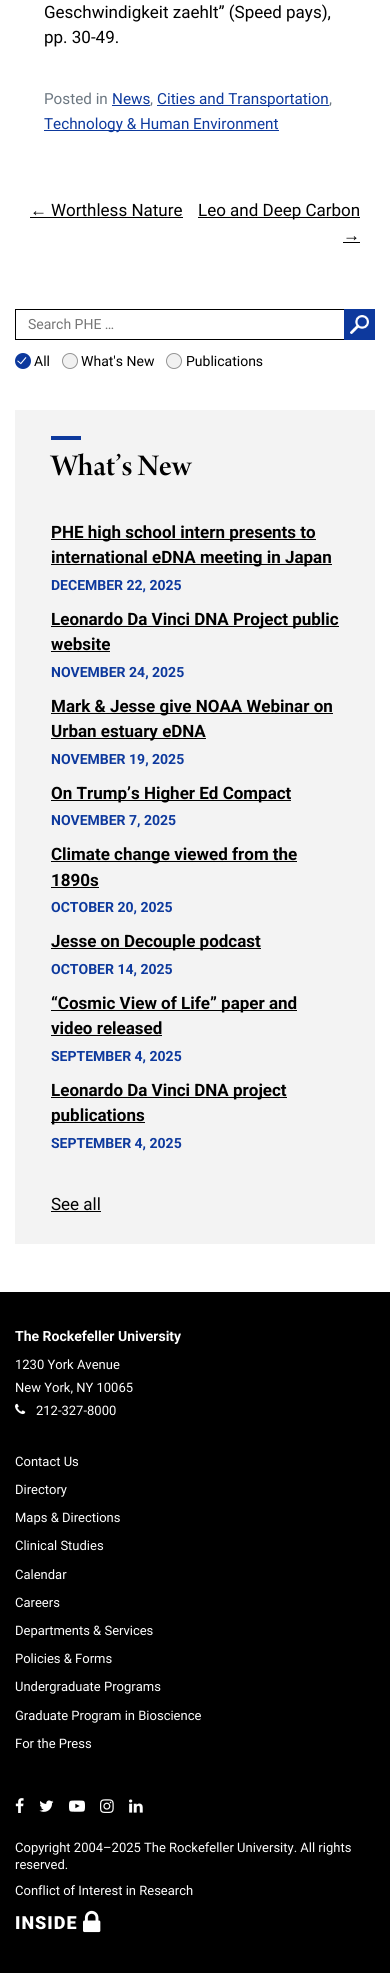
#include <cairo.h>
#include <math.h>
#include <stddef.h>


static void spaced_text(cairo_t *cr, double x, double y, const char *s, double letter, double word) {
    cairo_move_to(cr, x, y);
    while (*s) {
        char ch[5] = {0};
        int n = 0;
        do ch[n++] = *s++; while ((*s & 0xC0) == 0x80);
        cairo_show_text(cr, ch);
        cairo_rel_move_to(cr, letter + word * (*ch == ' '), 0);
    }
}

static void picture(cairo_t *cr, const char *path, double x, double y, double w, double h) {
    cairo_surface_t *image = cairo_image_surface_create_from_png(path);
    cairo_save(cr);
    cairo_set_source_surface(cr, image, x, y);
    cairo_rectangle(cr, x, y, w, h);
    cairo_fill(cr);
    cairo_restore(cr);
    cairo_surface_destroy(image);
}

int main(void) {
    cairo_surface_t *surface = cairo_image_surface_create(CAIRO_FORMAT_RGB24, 390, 1973);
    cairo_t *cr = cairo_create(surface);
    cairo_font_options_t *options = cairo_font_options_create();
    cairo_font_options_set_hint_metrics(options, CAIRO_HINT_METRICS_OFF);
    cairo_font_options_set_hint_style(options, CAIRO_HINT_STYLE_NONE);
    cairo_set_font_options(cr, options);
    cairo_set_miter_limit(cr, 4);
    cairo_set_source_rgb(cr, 1, 1, 1);
    cairo_paint(cr);
    cairo_select_font_face(cr, "Roboto", CAIRO_FONT_SLANT_NORMAL, CAIRO_FONT_WEIGHT_NORMAL);
    cairo_set_font_size(cr, 17);
    cairo_set_source_rgb(cr, 0, 0, 0);
    cairo_move_to(cr, 44, 18);
    cairo_show_text(cr, "Geschwindigkeit zaehlt” (Speed pays),");
    cairo_move_to(cr, 44, 43);
    cairo_show_text(cr, "pp. 30-49.");
    cairo_set_font_size(cr, 15.25);
    cairo_set_source_rgb(cr, 0.424, 0.467, 0.506);
    cairo_move_to(cr, 44, 104);
    cairo_show_text(cr, "Posted in");
    cairo_set_source_rgb(cr, 0.051, 0.224, 0.616);
    cairo_move_to(cr, 112, 104);
    cairo_show_text(cr, "News");
    cairo_set_source_rgb(cr, 0.424, 0.467, 0.506);
    cairo_move_to(cr, 150, 104);
    cairo_show_text(cr, ",");
    cairo_set_source_rgb(cr, 0.051, 0.224, 0.616);
    cairo_rectangle(cr, 112, 105, 38, 1);
    cairo_fill(cr);
    cairo_rectangle(cr, 157, 105, 172, 1);
    cairo_fill(cr);
    cairo_move_to(cr, 157, 104);
    cairo_show_text(cr, "Cities and Transportation");
    cairo_set_source_rgb(cr, 0.424, 0.467, 0.506);
    cairo_move_to(cr, 329, 104);
    cairo_show_text(cr, ",");
    cairo_set_source_rgb(cr, 0.051, 0.224, 0.616);
    cairo_rectangle(cr, 44, 130, 235, 1);
    cairo_fill(cr);
    cairo_move_to(cr, 44, 129);
    cairo_show_text(cr, "Technology & Human Environment");
    cairo_select_font_face(cr, "Liberation Sans", CAIRO_FONT_SLANT_NORMAL, CAIRO_FONT_WEIGHT_NORMAL);
    cairo_set_font_size(cr, 17);
    cairo_set_source_rgb(cr, 0, 0, 0);
    cairo_move_to(cr, 30, 216);
    cairo_show_text(cr, "←");
    cairo_rectangle(cr, 30, 217, 153, 1);
    cairo_fill(cr);
    cairo_select_font_face(cr, "Roboto", CAIRO_FONT_SLANT_NORMAL, CAIRO_FONT_WEIGHT_NORMAL);
    cairo_move_to(cr, 51, 216);
    cairo_show_text(cr, "Worthless Nature");
    cairo_rectangle(cr, 198, 217, 162, 1);
    cairo_fill(cr);
    cairo_move_to(cr, 198, 216);
    cairo_show_text(cr, "Leo and Deep Carbon");
    cairo_select_font_face(cr, "Liberation Sans", CAIRO_FONT_SLANT_NORMAL, CAIRO_FONT_WEIGHT_NORMAL);
    cairo_move_to(cr, 343, 241);
    cairo_show_text(cr, "→");
    cairo_rectangle(cr, 343, 242, 17, 1);
    cairo_fill(cr);
    cairo_set_source_rgb(cr, 0.953, 0.953, 0.953);
    cairo_rectangle(cr, 15, 410, 360, 834);
    cairo_fill(cr);
    cairo_rectangle(cr, 15.5, 309.5, 359, 30);
    cairo_set_source_rgb(cr, 0, 0, 0);
    cairo_set_line_width(cr, 1);
    cairo_stroke(cr);
    cairo_select_font_face(cr, "Roboto", CAIRO_FONT_SLANT_NORMAL, CAIRO_FONT_WEIGHT_NORMAL);
    cairo_set_font_size(cr, 14);
    cairo_set_source_rgb(cr, 0.459, 0.459, 0.459);
    cairo_move_to(cr, 28, 329);
    cairo_show_text(cr, "Search PHE …");
    cairo_set_source_rgb(cr, 0.051, 0.224, 0.616);
    cairo_rectangle(cr, 344, 309, 31, 31);
    cairo_fill(cr);
    picture(cr, "img1.png", 350, 315, 19, 19);
    cairo_arc(cr, 23, 361, 8, 0, 2 * M_PI);
    cairo_fill(cr);
    cairo_select_font_face(cr, "Noto Sans", CAIRO_FONT_SLANT_NORMAL, CAIRO_FONT_WEIGHT_NORMAL);
    cairo_set_font_size(cr, 12);
    cairo_set_source_rgb(cr, 1, 1, 1);
    cairo_save(cr);
    cairo_translate(cr, 17, 361);
    cairo_rotate(cr, 40 * M_PI / 180);
    cairo_move_to(cr, 0, 0);
    cairo_show_text(cr, "⅃");
    cairo_restore(cr);
    cairo_select_font_face(cr, "Roboto", CAIRO_FONT_SLANT_NORMAL, CAIRO_FONT_WEIGHT_NORMAL);
    cairo_set_font_size(cr, 14);
    cairo_set_source_rgb(cr, 0, 0, 0);
    cairo_move_to(cr, 34, 366);
    cairo_show_text(cr, "All");
    cairo_set_source_rgb(cr, 0.945, 0.945, 0.945);
    cairo_new_path(cr);
    cairo_arc(cr, 70, 361, 7.5, 0, 2 * M_PI);
    cairo_fill_preserve(cr);
    cairo_set_source_rgb(cr, 0.58, 0.58, 0.58);
    cairo_stroke(cr);
    cairo_set_source_rgb(cr, 0, 0, 0);
    cairo_move_to(cr, 81, 366);
    cairo_show_text(cr, "What's New");
    cairo_set_source_rgb(cr, 0.945, 0.945, 0.945);
    cairo_new_path(cr);
    cairo_arc(cr, 174, 361, 7.5, 0, 2 * M_PI);
    cairo_fill_preserve(cr);
    cairo_set_source_rgb(cr, 0.58, 0.58, 0.58);
    cairo_stroke(cr);
    cairo_set_source_rgb(cr, 0, 0, 0);
    cairo_move_to(cr, 186, 366);
    cairo_show_text(cr, "Publications");
    cairo_set_source_rgb(cr, 0.051, 0.224, 0.616);
    cairo_rectangle(cr, 51, 436, 30, 4);
    cairo_fill(cr);
    cairo_select_font_face(cr, "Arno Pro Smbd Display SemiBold", CAIRO_FONT_SLANT_NORMAL, CAIRO_FONT_WEIGHT_NORMAL);
    cairo_set_font_size(cr, 32);
    cairo_set_source_rgb(cr, 0, 0, 0);
    cairo_move_to(cr, 51, 475);
    cairo_show_text(cr, "What’s New");
    cairo_rectangle(cr, 51, 539, 265, 1);
    cairo_fill(cr);
    cairo_select_font_face(cr, "Roboto", CAIRO_FONT_SLANT_NORMAL, CAIRO_FONT_WEIGHT_BOLD);
    cairo_set_font_size(cr, 17);
    cairo_move_to(cr, 51, 538);
    cairo_show_text(cr, "PHE high school intern presents to");
    cairo_rectangle(cr, 51, 564, 281, 1);
    cairo_fill(cr);
    cairo_move_to(cr, 51, 563);
    cairo_show_text(cr, "international eDNA meeting in Japan");
    cairo_set_font_size(cr, 14);
    cairo_set_source_rgb(cr, 0.051, 0.224, 0.616);
    cairo_move_to(cr, 51, 590);
    cairo_show_text(cr, "DECEMBER 22, 2025");
    cairo_set_source_rgb(cr, 0, 0, 0);
    cairo_rectangle(cr, 51, 626, 288, 1);
    cairo_fill(cr);
    cairo_set_font_size(cr, 17);
    cairo_move_to(cr, 51, 625);
    cairo_show_text(cr, "Leonardo Da Vinci DNA Project public");
    cairo_move_to(cr, 51, 650);
    cairo_show_text(cr, "website");
    cairo_rectangle(cr, 51, 651, 59, 1);
    cairo_fill(cr);
    cairo_set_font_size(cr, 14);
    cairo_set_source_rgb(cr, 0.051, 0.224, 0.616);
    cairo_move_to(cr, 51, 677);
    cairo_show_text(cr, "NOVEMBER 24, 2025");
    cairo_set_source_rgb(cr, 0, 0, 0);
    cairo_rectangle(cr, 51, 713, 282, 1);
    cairo_fill(cr);
    cairo_set_font_size(cr, 17);
    cairo_move_to(cr, 51, 712);
    cairo_show_text(cr, "Mark & Jesse give NOAA Webinar on");
    cairo_rectangle(cr, 51, 738, 155, 1);
    cairo_fill(cr);
    cairo_move_to(cr, 51, 737);
    cairo_show_text(cr, "Urban estuary eDNA");
    cairo_set_font_size(cr, 14);
    cairo_set_source_rgb(cr, 0.051, 0.224, 0.616);
    cairo_move_to(cr, 51, 764);
    cairo_show_text(cr, "NOVEMBER 19, 2025");
    cairo_set_source_rgb(cr, 0, 0, 0);
    cairo_rectangle(cr, 51, 800, 240, 1);
    cairo_fill(cr);
    cairo_set_font_size(cr, 17);
    cairo_move_to(cr, 51, 799);
    cairo_show_text(cr, "On Trump’s Higher Ed Compact");
    cairo_set_font_size(cr, 14);
    cairo_set_source_rgb(cr, 0.051, 0.224, 0.616);
    cairo_move_to(cr, 51, 825);
    cairo_show_text(cr, "NOVEMBER 7, 2025");
    cairo_set_source_rgb(cr, 0, 0, 0);
    cairo_rectangle(cr, 51, 861, 246, 1);
    cairo_fill(cr);
    cairo_set_font_size(cr, 17);
    cairo_move_to(cr, 51, 860);
    cairo_show_text(cr, "Climate change viewed from the");
    cairo_move_to(cr, 51, 886);
    cairo_show_text(cr, "1890s");
    cairo_rectangle(cr, 51, 887, 48, 1);
    cairo_fill(cr);
    cairo_set_font_size(cr, 14);
    cairo_set_source_rgb(cr, 0.051, 0.224, 0.616);
    cairo_move_to(cr, 51, 912);
    cairo_show_text(cr, "OCTOBER 20, 2025");
    cairo_set_source_rgb(cr, 0, 0, 0);
    cairo_rectangle(cr, 51, 948, 210, 1);
    cairo_fill(cr);
    cairo_set_font_size(cr, 17);
    cairo_move_to(cr, 51, 947);
    cairo_show_text(cr, "Jesse on Decouple podcast");
    cairo_set_font_size(cr, 14);
    cairo_set_source_rgb(cr, 0.051, 0.224, 0.616);
    cairo_move_to(cr, 51, 974);
    cairo_show_text(cr, "OCTOBER 14, 2025");
    cairo_set_source_rgb(cr, 0, 0, 0);
    cairo_rectangle(cr, 51, 1010, 246, 1);
    cairo_fill(cr);
    cairo_set_font_size(cr, 17);
    cairo_move_to(cr, 51, 1009);
    cairo_show_text(cr, "“Cosmic View of Life” paper and");
    cairo_move_to(cr, 51, 1034);
    cairo_show_text(cr, "video released");
    cairo_rectangle(cr, 51, 1035, 111, 1);
    cairo_fill(cr);
    cairo_set_font_size(cr, 14);
    cairo_set_source_rgb(cr, 0.051, 0.224, 0.616);
    cairo_move_to(cr, 51, 1061);
    cairo_show_text(cr, "SEPTEMBER 4, 2025");
    cairo_set_source_rgb(cr, 0, 0, 0);
    cairo_rectangle(cr, 51, 1097, 236, 1);
    cairo_fill(cr);
    cairo_set_font_size(cr, 17);
    cairo_move_to(cr, 51, 1096);
    cairo_show_text(cr, "Leonardo Da Vinci DNA project");
    cairo_rectangle(cr, 51, 1122, 94, 1);
    cairo_fill(cr);
    cairo_move_to(cr, 51, 1121);
    cairo_show_text(cr, "publications");
    cairo_set_font_size(cr, 14);
    cairo_set_source_rgb(cr, 0.051, 0.224, 0.616);
    cairo_move_to(cr, 51, 1148);
    cairo_show_text(cr, "SEPTEMBER 4, 2025");
    cairo_select_font_face(cr, "Roboto", CAIRO_FONT_SLANT_NORMAL, CAIRO_FONT_WEIGHT_NORMAL);
    cairo_set_font_size(cr, 17);
    cairo_set_source_rgb(cr, 0, 0, 0);
    cairo_move_to(cr, 51, 1210);
    cairo_show_text(cr, "See all");
    cairo_rectangle(cr, 51, 1211, 50, 1);
    cairo_fill(cr);
    cairo_rectangle(cr, 0, 1292, 390, 681);
    cairo_fill(cr);
    cairo_select_font_face(cr, "Roboto", CAIRO_FONT_SLANT_NORMAL, CAIRO_FONT_WEIGHT_BOLD);
    cairo_set_font_size(cr, 14);
    cairo_set_source_rgb(cr, 1, 1, 1);
    cairo_move_to(cr, 15, 1341);
    cairo_show_text(cr, "The Rockefeller University");
    cairo_select_font_face(cr, "Roboto", CAIRO_FONT_SLANT_NORMAL, CAIRO_FONT_WEIGHT_NORMAL);
    cairo_set_font_size(cr, 13);
    cairo_move_to(cr, 15, 1369);
    cairo_show_text(cr, "1230 York Avenue");
    cairo_move_to(cr, 15, 1392);
    cairo_show_text(cr, "New York, NY 10065");
    picture(cr, "img2.png", 15, 1403, 11, 12);
    cairo_move_to(cr, 36, 1415);
    cairo_show_text(cr, "212-327-8000");
    cairo_move_to(cr, 15, 1466);
    cairo_show_text(cr, "Contact Us");
    cairo_move_to(cr, 15, 1494);
    cairo_show_text(cr, "Directory");
    cairo_move_to(cr, 15, 1522);
    cairo_show_text(cr, "Maps & Directions");
    cairo_move_to(cr, 15, 1550);
    cairo_show_text(cr, "Clinical Studies");
    cairo_move_to(cr, 15, 1579);
    cairo_show_text(cr, "Calendar");
    cairo_move_to(cr, 15, 1607);
    cairo_show_text(cr, "Careers");
    cairo_move_to(cr, 15, 1635);
    cairo_show_text(cr, "Departments & Services");
    cairo_move_to(cr, 15, 1663);
    cairo_show_text(cr, "Policies & Forms");
    cairo_move_to(cr, 15, 1691);
    cairo_show_text(cr, "Undergraduate Programs");
    cairo_move_to(cr, 15, 1720);
    cairo_show_text(cr, "Graduate Program in Bioscience");
    cairo_move_to(cr, 15, 1748);
    cairo_show_text(cr, "For the Press");
    picture(cr, "img3.png", 15, 1798, 9, 15);
    picture(cr, "img4.png", 39, 1800, 15, 12);
    picture(cr, "img5.png", 69, 1800, 16, 12);
    picture(cr, "img6.png", 100, 1799, 14, 14);
    picture(cr, "img7.png", 129, 1799, 14, 14);
    cairo_move_to(cr, 15, 1852);
    cairo_show_text(cr, "Copyright 2004–2025 The Rockefeller University. All rights");
    cairo_move_to(cr, 15, 1869);
    cairo_show_text(cr, "reserved.");
    cairo_move_to(cr, 15, 1895);
    cairo_show_text(cr, "Conflict of Interest in Research");
    cairo_select_font_face(cr, "Roboto Black", CAIRO_FONT_SLANT_NORMAL, CAIRO_FONT_WEIGHT_NORMAL);
    cairo_set_font_size(cr, 18);
    spaced_text(cr, 15, 1929, "INSIDE", 1, 0);
    picture(cr, "img8.png", 83, 1910, 18, 23);
    cairo_surface_write_to_png(surface, "page.png");
    cairo_font_options_destroy(options);
    cairo_destroy(cr);
    cairo_surface_destroy(surface);
    return 0;
}
